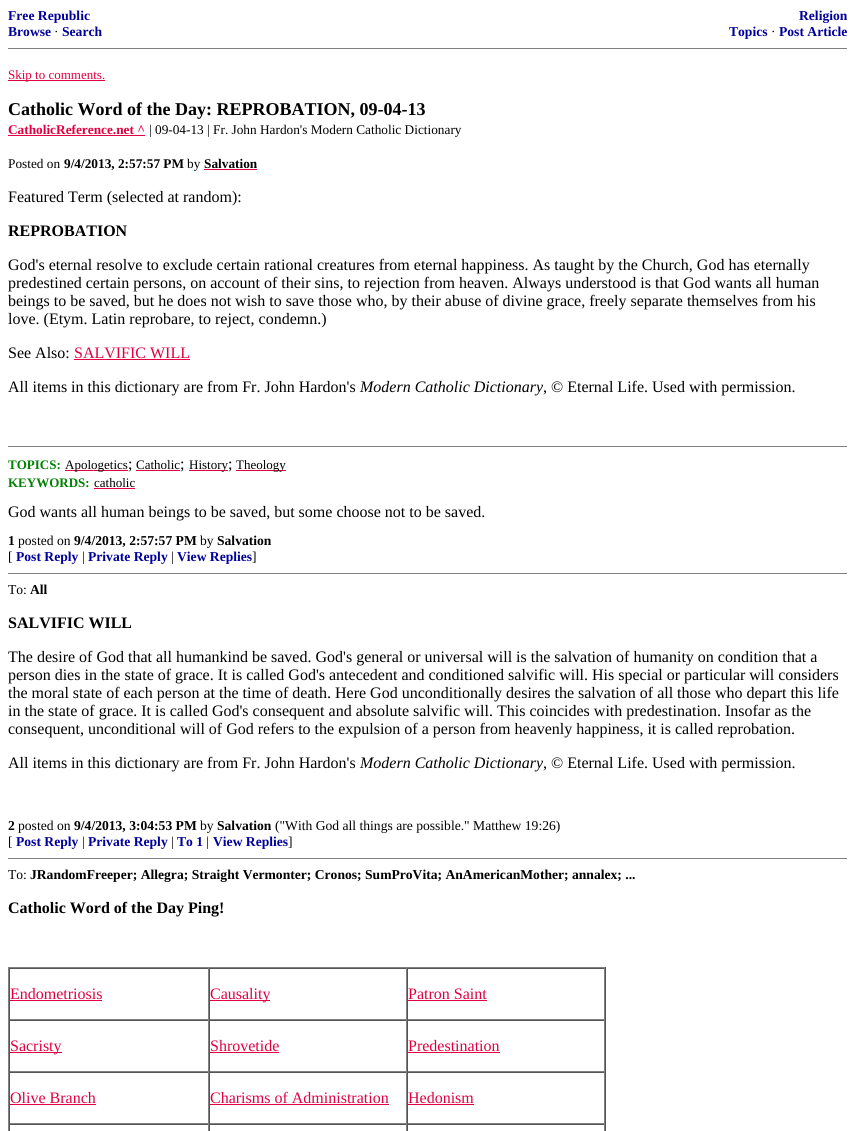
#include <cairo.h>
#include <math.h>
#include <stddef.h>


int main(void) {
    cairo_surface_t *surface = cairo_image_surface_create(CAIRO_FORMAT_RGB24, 855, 1131);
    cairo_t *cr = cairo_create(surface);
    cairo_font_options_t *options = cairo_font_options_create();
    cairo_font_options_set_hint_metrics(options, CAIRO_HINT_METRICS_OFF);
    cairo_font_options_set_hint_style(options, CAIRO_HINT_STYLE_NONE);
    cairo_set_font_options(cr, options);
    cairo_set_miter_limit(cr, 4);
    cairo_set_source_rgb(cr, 1, 1, 1);
    cairo_paint(cr);
    cairo_select_font_face(cr, "Liberation Serif", CAIRO_FONT_SLANT_NORMAL, CAIRO_FONT_WEIGHT_BOLD);
    cairo_set_font_size(cr, 13.6);
    cairo_set_source_rgb(cr, 0, 0, 0.6);
    cairo_move_to(cr, 8, 20);
    cairo_show_text(cr, "Free Republic");
    cairo_move_to(cr, 8, 36);
    cairo_show_text(cr, "Browse");
    cairo_select_font_face(cr, "Liberation Serif", CAIRO_FONT_SLANT_NORMAL, CAIRO_FONT_WEIGHT_NORMAL);
    cairo_set_source_rgb(cr, 0, 0, 0);
    cairo_move_to(cr, 54, 36);
    cairo_show_text(cr, "·");
    cairo_select_font_face(cr, "Liberation Serif", CAIRO_FONT_SLANT_NORMAL, CAIRO_FONT_WEIGHT_BOLD);
    cairo_set_source_rgb(cr, 0, 0, 0.6);
    cairo_move_to(cr, 62, 36);
    cairo_show_text(cr, "Search");
    cairo_move_to(cr, 799, 20);
    cairo_show_text(cr, "Religion");
    cairo_move_to(cr, 729, 36);
    cairo_show_text(cr, "Topics");
    cairo_select_font_face(cr, "Liberation Serif", CAIRO_FONT_SLANT_NORMAL, CAIRO_FONT_WEIGHT_NORMAL);
    cairo_set_source_rgb(cr, 0, 0, 0);
    cairo_move_to(cr, 771, 36);
    cairo_show_text(cr, "·");
    cairo_select_font_face(cr, "Liberation Serif", CAIRO_FONT_SLANT_NORMAL, CAIRO_FONT_WEIGHT_BOLD);
    cairo_set_source_rgb(cr, 0, 0, 0.6);
    cairo_move_to(cr, 779, 36);
    cairo_show_text(cr, "Post Article");
    cairo_set_source_rgb(cr, 0.502, 0.502, 0.502);
    cairo_rectangle(cr, 8, 48, 839, 1);
    cairo_fill(cr);
    cairo_set_source_rgb(cr, 0.878, 0, 0.251);
    cairo_rectangle(cr, 8, 80, 97, 1);
    cairo_fill(cr);
    cairo_select_font_face(cr, "Liberation Serif", CAIRO_FONT_SLANT_NORMAL, CAIRO_FONT_WEIGHT_NORMAL);
    cairo_set_font_size(cr, 13);
    cairo_move_to(cr, 8, 79);
    cairo_show_text(cr, "Skip to comments.");
    cairo_select_font_face(cr, "Liberation Serif", CAIRO_FONT_SLANT_NORMAL, CAIRO_FONT_WEIGHT_BOLD);
    cairo_set_font_size(cr, 18);
    cairo_set_source_rgb(cr, 0, 0, 0);
    cairo_move_to(cr, 8, 115);
    cairo_show_text(cr, "Catholic Word of the Day: REPROBATION, 09-04-13");
    cairo_set_font_size(cr, 13.3);
    cairo_set_source_rgb(cr, 0.878, 0, 0.251);
    cairo_move_to(cr, 8, 134);
    cairo_show_text(cr, "CatholicReference.net ^");
    cairo_rectangle(cr, 8, 135, 137, 1);
    cairo_fill(cr);
    cairo_select_font_face(cr, "Liberation Serif", CAIRO_FONT_SLANT_NORMAL, CAIRO_FONT_WEIGHT_NORMAL);
    cairo_set_source_rgb(cr, 0, 0, 0);
    cairo_move_to(cr, 149, 134);
    cairo_show_text(cr, "| 09-04-13 | Fr. John Hardon's Modern Catholic Dictionary");
    cairo_move_to(cr, 8, 168);
    cairo_show_text(cr, "Posted on");
    cairo_select_font_face(cr, "Liberation Serif", CAIRO_FONT_SLANT_NORMAL, CAIRO_FONT_WEIGHT_BOLD);
    cairo_move_to(cr, 64, 168);
    cairo_show_text(cr, "9/4/2013, 2:57:57 PM");
    cairo_select_font_face(cr, "Liberation Serif", CAIRO_FONT_SLANT_NORMAL, CAIRO_FONT_WEIGHT_NORMAL);
    cairo_move_to(cr, 187, 168);
    cairo_show_text(cr, "by");
    cairo_select_font_face(cr, "Liberation Serif", CAIRO_FONT_SLANT_NORMAL, CAIRO_FONT_WEIGHT_BOLD);
    cairo_move_to(cr, 204, 168);
    cairo_show_text(cr, "Salvation");
    cairo_set_source_rgb(cr, 0.878, 0, 0.251);
    cairo_rectangle(cr, 204, 169, 53, 1);
    cairo_fill(cr);
    cairo_select_font_face(cr, "Liberation Serif", CAIRO_FONT_SLANT_NORMAL, CAIRO_FONT_WEIGHT_NORMAL);
    cairo_set_font_size(cr, 16);
    cairo_set_source_rgb(cr, 0, 0, 0);
    cairo_move_to(cr, 8, 202);
    cairo_show_text(cr, "Featured Term (selected at random):");
    cairo_select_font_face(cr, "Liberation Serif", CAIRO_FONT_SLANT_NORMAL, CAIRO_FONT_WEIGHT_BOLD);
    cairo_move_to(cr, 8, 236);
    cairo_show_text(cr, "REPROBATION");
    cairo_select_font_face(cr, "Liberation Serif", CAIRO_FONT_SLANT_NORMAL, CAIRO_FONT_WEIGHT_NORMAL);
    cairo_move_to(cr, 8, 270);
    cairo_show_text(cr, "God's eternal resolve to exclude certain rational creatures from eternal happiness. As taught by the Church, God has eternally");
    cairo_move_to(cr, 8, 288);
    cairo_show_text(cr, "predestined certain persons, on account of their sins, to rejection from heaven. Always understood is that God wants all human");
    cairo_move_to(cr, 8, 306);
    cairo_show_text(cr, "beings to be saved, but he does not wish to save those who, by their abuse of divine grace, freely separate themselves from his");
    cairo_move_to(cr, 8, 324);
    cairo_show_text(cr, "love. (Etym. Latin reprobare, to reject, condemn.)");
    cairo_move_to(cr, 8, 358);
    cairo_show_text(cr, "See Also:");
    cairo_set_source_rgb(cr, 0.878, 0, 0.251);
    cairo_move_to(cr, 74, 358);
    cairo_show_text(cr, "SALVIFIC WILL");
    cairo_rectangle(cr, 74, 359, 116, 1);
    cairo_fill(cr);
    cairo_set_source_rgb(cr, 0, 0, 0);
    cairo_move_to(cr, 8, 392);
    cairo_show_text(cr, "All items in this dictionary are from Fr. John Hardon's");
    cairo_select_font_face(cr, "Liberation Serif", CAIRO_FONT_SLANT_ITALIC, CAIRO_FONT_WEIGHT_NORMAL);
    cairo_move_to(cr, 360, 392);
    cairo_show_text(cr, "Modern Catholic Dictionary");
    cairo_select_font_face(cr, "Liberation Serif", CAIRO_FONT_SLANT_NORMAL, CAIRO_FONT_WEIGHT_NORMAL);
    cairo_move_to(cr, 543, 392);
    cairo_show_text(cr, ", © Eternal Life. Used with permission.");
    cairo_set_source_rgb(cr, 0.502, 0.502, 0.502);
    cairo_rectangle(cr, 8, 446, 839, 1);
    cairo_fill(cr);
    cairo_select_font_face(cr, "Liberation Serif", CAIRO_FONT_SLANT_NORMAL, CAIRO_FONT_WEIGHT_BOLD);
    cairo_set_font_size(cr, 13);
    cairo_set_source_rgb(cr, 0, 0.502, 0);
    cairo_move_to(cr, 8, 469);
    cairo_show_text(cr, "TOPICS:");
    cairo_set_source_rgb(cr, 0.878, 0, 0.251);
    cairo_rectangle(cr, 65, 470, 63, 1);
    cairo_fill(cr);
    cairo_select_font_face(cr, "Liberation Serif", CAIRO_FONT_SLANT_NORMAL, CAIRO_FONT_WEIGHT_NORMAL);
    cairo_set_source_rgb(cr, 0, 0, 0);
    cairo_move_to(cr, 65, 469);
    cairo_show_text(cr, "Apologetics");
    cairo_set_font_size(cr, 16);
    cairo_move_to(cr, 128, 469);
    cairo_show_text(cr, ";");
    cairo_set_font_size(cr, 13);
    cairo_move_to(cr, 136, 469);
    cairo_show_text(cr, "Catholic");
    cairo_set_source_rgb(cr, 0.878, 0, 0.251);
    cairo_rectangle(cr, 136, 470, 44, 1);
    cairo_fill(cr);
    cairo_set_font_size(cr, 16);
    cairo_set_source_rgb(cr, 0, 0, 0);
    cairo_move_to(cr, 180, 469);
    cairo_show_text(cr, ";");
    cairo_set_source_rgb(cr, 0.878, 0, 0.251);
    cairo_rectangle(cr, 189, 470, 39, 1);
    cairo_fill(cr);
    cairo_set_font_size(cr, 13);
    cairo_set_source_rgb(cr, 0, 0, 0);
    cairo_move_to(cr, 189, 469);
    cairo_show_text(cr, "History");
    cairo_set_font_size(cr, 16);
    cairo_move_to(cr, 228, 469);
    cairo_show_text(cr, ";");
    cairo_set_source_rgb(cr, 0.878, 0, 0.251);
    cairo_rectangle(cr, 236, 470, 50, 1);
    cairo_fill(cr);
    cairo_set_font_size(cr, 13);
    cairo_set_source_rgb(cr, 0, 0, 0);
    cairo_move_to(cr, 236, 469);
    cairo_show_text(cr, "Theology");
    cairo_select_font_face(cr, "Liberation Serif", CAIRO_FONT_SLANT_NORMAL, CAIRO_FONT_WEIGHT_BOLD);
    cairo_set_source_rgb(cr, 0, 0.502, 0);
    cairo_move_to(cr, 8, 487);
    cairo_show_text(cr, "KEYWORDS:");
    cairo_select_font_face(cr, "Liberation Serif", CAIRO_FONT_SLANT_NORMAL, CAIRO_FONT_WEIGHT_NORMAL);
    cairo_set_source_rgb(cr, 0, 0, 0);
    cairo_move_to(cr, 94, 487);
    cairo_show_text(cr, "catholic");
    cairo_set_source_rgb(cr, 0.878, 0, 0.251);
    cairo_rectangle(cr, 94, 488, 41, 1);
    cairo_fill(cr);
    cairo_set_font_size(cr, 16);
    cairo_set_source_rgb(cr, 0, 0, 0);
    cairo_move_to(cr, 8, 517);
    cairo_show_text(cr, "God wants all human beings to be saved, but some choose not to be saved.");
    cairo_select_font_face(cr, "Liberation Serif", CAIRO_FONT_SLANT_NORMAL, CAIRO_FONT_WEIGHT_BOLD);
    cairo_set_font_size(cr, 13.6);
    cairo_move_to(cr, 8, 545);
    cairo_show_text(cr, "1");
    cairo_select_font_face(cr, "Liberation Serif", CAIRO_FONT_SLANT_NORMAL, CAIRO_FONT_WEIGHT_NORMAL);
    cairo_move_to(cr, 18, 545);
    cairo_show_text(cr, "posted on");
    cairo_select_font_face(cr, "Liberation Serif", CAIRO_FONT_SLANT_NORMAL, CAIRO_FONT_WEIGHT_BOLD);
    cairo_move_to(cr, 74, 545);
    cairo_show_text(cr, "9/4/2013, 2:57:57 PM");
    cairo_select_font_face(cr, "Liberation Serif", CAIRO_FONT_SLANT_NORMAL, CAIRO_FONT_WEIGHT_NORMAL);
    cairo_move_to(cr, 200, 545);
    cairo_show_text(cr, "by");
    cairo_select_font_face(cr, "Liberation Serif", CAIRO_FONT_SLANT_NORMAL, CAIRO_FONT_WEIGHT_BOLD);
    cairo_move_to(cr, 217, 545);
    cairo_show_text(cr, "Salvation");
    cairo_select_font_face(cr, "Liberation Serif", CAIRO_FONT_SLANT_NORMAL, CAIRO_FONT_WEIGHT_NORMAL);
    cairo_move_to(cr, 8, 561);
    cairo_show_text(cr, "[");
    cairo_select_font_face(cr, "Liberation Serif", CAIRO_FONT_SLANT_NORMAL, CAIRO_FONT_WEIGHT_BOLD);
    cairo_set_source_rgb(cr, 0, 0, 0.6);
    cairo_move_to(cr, 16, 561);
    cairo_show_text(cr, "Post Reply");
    cairo_select_font_face(cr, "Liberation Serif", CAIRO_FONT_SLANT_NORMAL, CAIRO_FONT_WEIGHT_NORMAL);
    cairo_set_source_rgb(cr, 0, 0, 0);
    cairo_move_to(cr, 82, 561);
    cairo_show_text(cr, "|");
    cairo_select_font_face(cr, "Liberation Serif", CAIRO_FONT_SLANT_NORMAL, CAIRO_FONT_WEIGHT_BOLD);
    cairo_set_source_rgb(cr, 0, 0, 0.6);
    cairo_move_to(cr, 88, 561);
    cairo_show_text(cr, "Private Reply");
    cairo_select_font_face(cr, "Liberation Serif", CAIRO_FONT_SLANT_NORMAL, CAIRO_FONT_WEIGHT_NORMAL);
    cairo_set_source_rgb(cr, 0, 0, 0);
    cairo_move_to(cr, 171, 561);
    cairo_show_text(cr, "|");
    cairo_select_font_face(cr, "Liberation Serif", CAIRO_FONT_SLANT_NORMAL, CAIRO_FONT_WEIGHT_BOLD);
    cairo_set_source_rgb(cr, 0, 0, 0.6);
    cairo_move_to(cr, 177, 561);
    cairo_show_text(cr, "View Replies");
    cairo_select_font_face(cr, "Liberation Serif", CAIRO_FONT_SLANT_NORMAL, CAIRO_FONT_WEIGHT_NORMAL);
    cairo_set_source_rgb(cr, 0, 0, 0);
    cairo_move_to(cr, 252, 561);
    cairo_show_text(cr, "]");
    cairo_set_source_rgb(cr, 0.502, 0.502, 0.502);
    cairo_rectangle(cr, 8, 573, 839, 1);
    cairo_fill(cr);
    cairo_set_source_rgb(cr, 0, 0, 0);
    cairo_move_to(cr, 8, 594);
    cairo_show_text(cr, "To:");
    cairo_select_font_face(cr, "Liberation Serif", CAIRO_FONT_SLANT_NORMAL, CAIRO_FONT_WEIGHT_BOLD);
    cairo_move_to(cr, 30, 594);
    cairo_show_text(cr, "All");
    cairo_set_font_size(cr, 16);
    cairo_move_to(cr, 8, 628);
    cairo_show_text(cr, "SALVIFIC WILL");
    cairo_select_font_face(cr, "Liberation Serif", CAIRO_FONT_SLANT_NORMAL, CAIRO_FONT_WEIGHT_NORMAL);
    cairo_move_to(cr, 8, 662);
    cairo_show_text(cr, "The desire of God that all humankind be saved. God's general or universal will is the salvation of humanity on condition that a");
    cairo_move_to(cr, 8, 680);
    cairo_show_text(cr, "person dies in the state of grace. It is called God's antecedent and conditioned salvific will. His special or particular will considers");
    cairo_move_to(cr, 8, 698);
    cairo_show_text(cr, "the moral state of each person at the time of death. Here God unconditionally desires the salvation of all those who depart this life");
    cairo_move_to(cr, 8, 716);
    cairo_show_text(cr, "in the state of grace. It is called God's consequent and absolute salvific will. This coincides with predestination. Insofar as the");
    cairo_move_to(cr, 8, 734);
    cairo_show_text(cr, "consequent, unconditional will of God refers to the expulsion of a person from heavenly happiness, it is called reprobation.");
    cairo_move_to(cr, 8, 768);
    cairo_show_text(cr, "All items in this dictionary are from Fr. John Hardon's");
    cairo_select_font_face(cr, "Liberation Serif", CAIRO_FONT_SLANT_ITALIC, CAIRO_FONT_WEIGHT_NORMAL);
    cairo_move_to(cr, 360, 768);
    cairo_show_text(cr, "Modern Catholic Dictionary");
    cairo_select_font_face(cr, "Liberation Serif", CAIRO_FONT_SLANT_NORMAL, CAIRO_FONT_WEIGHT_NORMAL);
    cairo_move_to(cr, 543, 768);
    cairo_show_text(cr, ", © Eternal Life. Used with permission.");
    cairo_select_font_face(cr, "Liberation Serif", CAIRO_FONT_SLANT_NORMAL, CAIRO_FONT_WEIGHT_BOLD);
    cairo_set_font_size(cr, 13.6);
    cairo_move_to(cr, 8, 830);
    cairo_show_text(cr, "2");
    cairo_select_font_face(cr, "Liberation Serif", CAIRO_FONT_SLANT_NORMAL, CAIRO_FONT_WEIGHT_NORMAL);
    cairo_move_to(cr, 18, 830);
    cairo_show_text(cr, "posted on");
    cairo_select_font_face(cr, "Liberation Serif", CAIRO_FONT_SLANT_NORMAL, CAIRO_FONT_WEIGHT_BOLD);
    cairo_move_to(cr, 74, 830);
    cairo_show_text(cr, "9/4/2013, 3:04:53 PM");
    cairo_select_font_face(cr, "Liberation Serif", CAIRO_FONT_SLANT_NORMAL, CAIRO_FONT_WEIGHT_NORMAL);
    cairo_move_to(cr, 200, 830);
    cairo_show_text(cr, "by");
    cairo_select_font_face(cr, "Liberation Serif", CAIRO_FONT_SLANT_NORMAL, CAIRO_FONT_WEIGHT_BOLD);
    cairo_move_to(cr, 217, 830);
    cairo_show_text(cr, "Salvation");
    cairo_select_font_face(cr, "Liberation Serif", CAIRO_FONT_SLANT_NORMAL, CAIRO_FONT_WEIGHT_NORMAL);
    cairo_move_to(cr, 275, 830);
    cairo_show_text(cr, "(\"With God all things are possible.\" Matthew 19:26)");
    cairo_move_to(cr, 8, 846);
    cairo_show_text(cr, "[");
    cairo_select_font_face(cr, "Liberation Serif", CAIRO_FONT_SLANT_NORMAL, CAIRO_FONT_WEIGHT_BOLD);
    cairo_set_source_rgb(cr, 0, 0, 0.6);
    cairo_move_to(cr, 16, 846);
    cairo_show_text(cr, "Post Reply");
    cairo_select_font_face(cr, "Liberation Serif", CAIRO_FONT_SLANT_NORMAL, CAIRO_FONT_WEIGHT_NORMAL);
    cairo_set_source_rgb(cr, 0, 0, 0);
    cairo_move_to(cr, 82, 846);
    cairo_show_text(cr, "|");
    cairo_select_font_face(cr, "Liberation Serif", CAIRO_FONT_SLANT_NORMAL, CAIRO_FONT_WEIGHT_BOLD);
    cairo_set_source_rgb(cr, 0, 0, 0.6);
    cairo_move_to(cr, 88, 846);
    cairo_show_text(cr, "Private Reply");
    cairo_select_font_face(cr, "Liberation Serif", CAIRO_FONT_SLANT_NORMAL, CAIRO_FONT_WEIGHT_NORMAL);
    cairo_set_source_rgb(cr, 0, 0, 0);
    cairo_move_to(cr, 171, 846);
    cairo_show_text(cr, "|");
    cairo_select_font_face(cr, "Liberation Serif", CAIRO_FONT_SLANT_NORMAL, CAIRO_FONT_WEIGHT_BOLD);
    cairo_set_source_rgb(cr, 0, 0, 0.6);
    cairo_move_to(cr, 177, 846);
    cairo_show_text(cr, "To 1");
    cairo_select_font_face(cr, "Liberation Serif", CAIRO_FONT_SLANT_NORMAL, CAIRO_FONT_WEIGHT_NORMAL);
    cairo_set_source_rgb(cr, 0, 0, 0);
    cairo_move_to(cr, 206, 846);
    cairo_show_text(cr, "|");
    cairo_select_font_face(cr, "Liberation Serif", CAIRO_FONT_SLANT_NORMAL, CAIRO_FONT_WEIGHT_BOLD);
    cairo_set_source_rgb(cr, 0, 0, 0.6);
    cairo_move_to(cr, 213, 846);
    cairo_show_text(cr, "View Replies");
    cairo_select_font_face(cr, "Liberation Serif", CAIRO_FONT_SLANT_NORMAL, CAIRO_FONT_WEIGHT_NORMAL);
    cairo_set_source_rgb(cr, 0, 0, 0);
    cairo_move_to(cr, 288, 846);
    cairo_show_text(cr, "]");
    cairo_set_source_rgb(cr, 0.502, 0.502, 0.502);
    cairo_rectangle(cr, 8, 858, 839, 1);
    cairo_fill(cr);
    cairo_set_source_rgb(cr, 0, 0, 0);
    cairo_move_to(cr, 8, 879);
    cairo_show_text(cr, "To:");
    cairo_select_font_face(cr, "Liberation Serif", CAIRO_FONT_SLANT_NORMAL, CAIRO_FONT_WEIGHT_BOLD);
    cairo_move_to(cr, 30, 879);
    cairo_show_text(cr, "JRandomFreeper; Allegra; Straight Vermonter; Cronos; SumProVita; AnAmericanMother; annalex; ...");
    cairo_set_font_size(cr, 16);
    cairo_move_to(cr, 8, 913);
    cairo_show_text(cr, "Catholic Word of the Day Ping!");
    cairo_set_source_rgb(cr, 0.502, 0.502, 0.502);
    cairo_rectangle(cr, 8, 967, 598, 1);
    cairo_fill(cr);
    cairo_set_source_rgb(cr, 0.333, 0.333, 0.333);
    cairo_rectangle(cr, 605, 967, 1, 164);
    cairo_fill(cr);
    cairo_set_source_rgb(cr, 0.502, 0.502, 0.502);
    cairo_rectangle(cr, 8, 967, 1, 164);
    cairo_fill(cr);
    cairo_set_source_rgb(cr, 0.333, 0.333, 0.333);
    cairo_rectangle(cr, 9, 968, 596, 1);
    cairo_fill(cr);
    cairo_set_source_rgb(cr, 0.502, 0.502, 0.502);
    cairo_rectangle(cr, 208, 968, 1, 52);
    cairo_fill(cr);
    cairo_rectangle(cr, 9, 1019, 200, 1);
    cairo_fill(cr);
    cairo_set_source_rgb(cr, 0.333, 0.333, 0.333);
    cairo_rectangle(cr, 9, 968, 1, 52);
    cairo_fill(cr);
    cairo_select_font_face(cr, "Liberation Serif", CAIRO_FONT_SLANT_NORMAL, CAIRO_FONT_WEIGHT_NORMAL);
    cairo_set_source_rgb(cr, 0.878, 0, 0.251);
    cairo_move_to(cr, 10, 999);
    cairo_show_text(cr, "Endometriosis");
    cairo_rectangle(cr, 10, 1000, 92, 1);
    cairo_fill(cr);
    cairo_set_source_rgb(cr, 0.502, 0.502, 0.502);
    cairo_rectangle(cr, 406, 968, 1, 52);
    cairo_fill(cr);
    cairo_rectangle(cr, 209, 1019, 198, 1);
    cairo_fill(cr);
    cairo_set_source_rgb(cr, 0.333, 0.333, 0.333);
    cairo_rectangle(cr, 209, 968, 1, 52);
    cairo_fill(cr);
    cairo_set_source_rgb(cr, 0.878, 0, 0.251);
    cairo_rectangle(cr, 210, 1000, 60, 1);
    cairo_fill(cr);
    cairo_move_to(cr, 210, 999);
    cairo_show_text(cr, "Causality");
    cairo_set_source_rgb(cr, 0.502, 0.502, 0.502);
    cairo_rectangle(cr, 604, 968, 1, 52);
    cairo_fill(cr);
    cairo_rectangle(cr, 407, 1019, 198, 1);
    cairo_fill(cr);
    cairo_set_source_rgb(cr, 0.333, 0.333, 0.333);
    cairo_rectangle(cr, 407, 968, 1, 52);
    cairo_fill(cr);
    cairo_set_source_rgb(cr, 0.878, 0, 0.251);
    cairo_move_to(cr, 408, 999);
    cairo_show_text(cr, "Patron Saint");
    cairo_rectangle(cr, 408, 1000, 79, 1);
    cairo_fill(cr);
    cairo_set_source_rgb(cr, 0.333, 0.333, 0.333);
    cairo_rectangle(cr, 9, 1020, 596, 1);
    cairo_fill(cr);
    cairo_set_source_rgb(cr, 0.502, 0.502, 0.502);
    cairo_rectangle(cr, 208, 1020, 1, 52);
    cairo_fill(cr);
    cairo_rectangle(cr, 9, 1071, 200, 1);
    cairo_fill(cr);
    cairo_set_source_rgb(cr, 0.333, 0.333, 0.333);
    cairo_rectangle(cr, 9, 1020, 1, 52);
    cairo_fill(cr);
    cairo_set_source_rgb(cr, 0.878, 0, 0.251);
    cairo_rectangle(cr, 10, 1052, 52, 1);
    cairo_fill(cr);
    cairo_move_to(cr, 10, 1051);
    cairo_show_text(cr, "Sacristy");
    cairo_set_source_rgb(cr, 0.502, 0.502, 0.502);
    cairo_rectangle(cr, 406, 1020, 1, 52);
    cairo_fill(cr);
    cairo_rectangle(cr, 209, 1071, 198, 1);
    cairo_fill(cr);
    cairo_set_source_rgb(cr, 0.333, 0.333, 0.333);
    cairo_rectangle(cr, 209, 1020, 1, 52);
    cairo_fill(cr);
    cairo_set_source_rgb(cr, 0.878, 0, 0.251);
    cairo_move_to(cr, 210, 1051);
    cairo_show_text(cr, "Shrovetide");
    cairo_rectangle(cr, 210, 1052, 69, 1);
    cairo_fill(cr);
    cairo_set_source_rgb(cr, 0.502, 0.502, 0.502);
    cairo_rectangle(cr, 604, 1020, 1, 52);
    cairo_fill(cr);
    cairo_rectangle(cr, 407, 1071, 198, 1);
    cairo_fill(cr);
    cairo_set_source_rgb(cr, 0.333, 0.333, 0.333);
    cairo_rectangle(cr, 407, 1020, 1, 52);
    cairo_fill(cr);
    cairo_set_source_rgb(cr, 0.878, 0, 0.251);
    cairo_move_to(cr, 408, 1051);
    cairo_show_text(cr, "Predestination");
    cairo_rectangle(cr, 408, 1052, 92, 1);
    cairo_fill(cr);
    cairo_set_source_rgb(cr, 0.333, 0.333, 0.333);
    cairo_rectangle(cr, 9, 1072, 596, 1);
    cairo_fill(cr);
    cairo_set_source_rgb(cr, 0.502, 0.502, 0.502);
    cairo_rectangle(cr, 208, 1072, 1, 52);
    cairo_fill(cr);
    cairo_rectangle(cr, 9, 1123, 200, 1);
    cairo_fill(cr);
    cairo_set_source_rgb(cr, 0.333, 0.333, 0.333);
    cairo_rectangle(cr, 9, 1072, 1, 52);
    cairo_fill(cr);
    cairo_set_source_rgb(cr, 0.878, 0, 0.251);
    cairo_move_to(cr, 10, 1103);
    cairo_show_text(cr, "Olive Branch");
    cairo_rectangle(cr, 10, 1104, 86, 1);
    cairo_fill(cr);
    cairo_set_source_rgb(cr, 0.502, 0.502, 0.502);
    cairo_rectangle(cr, 406, 1072, 1, 52);
    cairo_fill(cr);
    cairo_rectangle(cr, 209, 1123, 198, 1);
    cairo_fill(cr);
    cairo_set_source_rgb(cr, 0.333, 0.333, 0.333);
    cairo_rectangle(cr, 209, 1072, 1, 52);
    cairo_fill(cr);
    cairo_set_source_rgb(cr, 0.878, 0, 0.251);
    cairo_move_to(cr, 210, 1103);
    cairo_show_text(cr, "Charisms of Administration");
    cairo_rectangle(cr, 210, 1104, 179, 1);
    cairo_fill(cr);
    cairo_set_source_rgb(cr, 0.502, 0.502, 0.502);
    cairo_rectangle(cr, 604, 1072, 1, 52);
    cairo_fill(cr);
    cairo_rectangle(cr, 407, 1123, 198, 1);
    cairo_fill(cr);
    cairo_set_source_rgb(cr, 0.333, 0.333, 0.333);
    cairo_rectangle(cr, 407, 1072, 1, 52);
    cairo_fill(cr);
    cairo_set_source_rgb(cr, 0.878, 0, 0.251);
    cairo_move_to(cr, 408, 1103);
    cairo_show_text(cr, "Hedonism");
    cairo_rectangle(cr, 408, 1104, 66, 1);
    cairo_fill(cr);
    cairo_set_source_rgb(cr, 0.333, 0.333, 0.333);
    cairo_rectangle(cr, 9, 1124, 596, 1);
    cairo_fill(cr);
    cairo_set_source_rgb(cr, 0.502, 0.502, 0.502);
    cairo_rectangle(cr, 208, 1124, 1, 7);
    cairo_fill(cr);
    cairo_set_source_rgb(cr, 0.333, 0.333, 0.333);
    cairo_rectangle(cr, 9, 1124, 1, 7);
    cairo_fill(cr);
    cairo_set_source_rgb(cr, 0.502, 0.502, 0.502);
    cairo_rectangle(cr, 406, 1124, 1, 7);
    cairo_fill(cr);
    cairo_set_source_rgb(cr, 0.333, 0.333, 0.333);
    cairo_rectangle(cr, 209, 1124, 1, 7);
    cairo_fill(cr);
    cairo_set_source_rgb(cr, 0.502, 0.502, 0.502);
    cairo_rectangle(cr, 604, 1124, 1, 7);
    cairo_fill(cr);
    cairo_set_source_rgb(cr, 0.333, 0.333, 0.333);
    cairo_rectangle(cr, 407, 1124, 1, 7);
    cairo_fill(cr);
    cairo_surface_write_to_png(surface, "page.png");
    cairo_font_options_destroy(options);
    cairo_destroy(cr);
    cairo_surface_destroy(surface);
    return 0;
}
